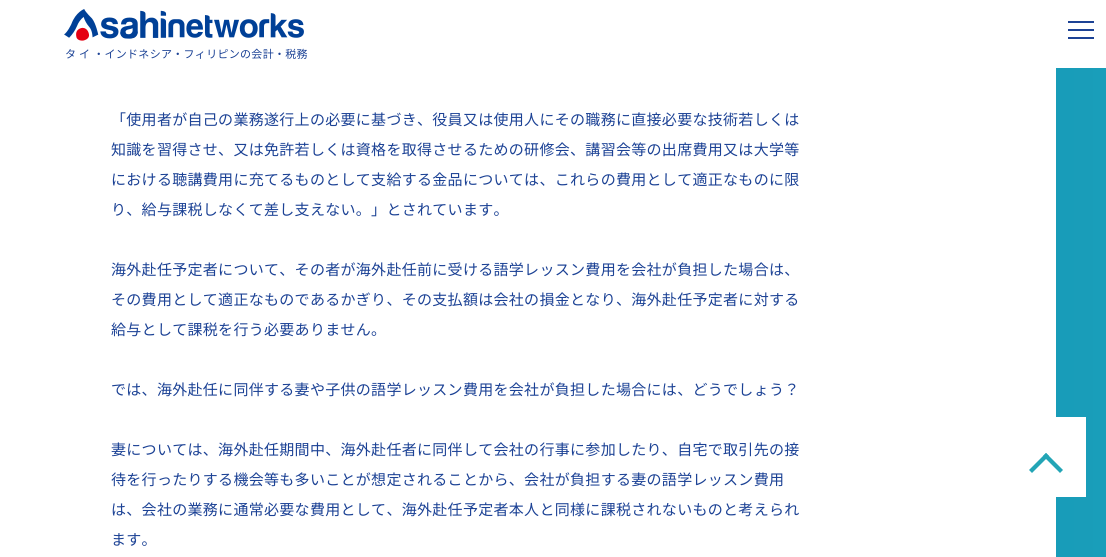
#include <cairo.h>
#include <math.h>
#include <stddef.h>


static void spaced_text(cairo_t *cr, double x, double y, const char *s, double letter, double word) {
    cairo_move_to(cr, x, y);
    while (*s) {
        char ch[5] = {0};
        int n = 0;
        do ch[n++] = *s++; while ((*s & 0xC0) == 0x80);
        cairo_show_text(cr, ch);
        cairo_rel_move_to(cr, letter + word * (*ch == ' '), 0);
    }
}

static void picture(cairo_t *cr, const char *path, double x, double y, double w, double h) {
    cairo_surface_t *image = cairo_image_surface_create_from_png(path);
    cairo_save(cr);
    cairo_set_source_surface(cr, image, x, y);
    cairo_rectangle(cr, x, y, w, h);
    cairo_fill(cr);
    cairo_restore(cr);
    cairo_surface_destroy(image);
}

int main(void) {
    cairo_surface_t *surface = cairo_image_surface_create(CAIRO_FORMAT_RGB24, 1106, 557);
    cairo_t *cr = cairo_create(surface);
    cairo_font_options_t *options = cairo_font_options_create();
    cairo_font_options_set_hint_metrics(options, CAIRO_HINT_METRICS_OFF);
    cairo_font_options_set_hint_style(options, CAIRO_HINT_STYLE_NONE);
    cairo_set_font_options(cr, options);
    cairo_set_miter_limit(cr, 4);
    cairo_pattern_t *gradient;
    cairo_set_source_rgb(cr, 1, 1, 1);
    cairo_paint(cr);
    cairo_set_source_rgb(cr, 0.11, 0.259, 0.584);
    cairo_rectangle(cr, 1068, 21, 26, 2);
    cairo_fill(cr);
    cairo_rectangle(cr, 1068, 29, 26, 2);
    cairo_fill(cr);
    cairo_rectangle(cr, 1068, 37, 26, 2);
    cairo_fill(cr);
    picture(cr, "img1.png", 64, 9, 240, 32);
    cairo_select_font_face(cr, "Noto Sans JP", CAIRO_FONT_SLANT_NORMAL, CAIRO_FONT_WEIGHT_NORMAL);
    cairo_set_font_size(cr, 11);
    spaced_text(cr, 65, 58, "タ イ ・インドネシア・フィリピンの会計・税務", 0.3, 0);
    gradient = cairo_pattern_create_linear(0, 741, 1106, 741);
    cairo_pattern_add_color_stop_rgba(gradient, 0, 0.031, 0.427, 0.6, 1);
    cairo_pattern_add_color_stop_rgba(gradient, 1, 0.098, 0.62, 0.729, 1);
    cairo_set_source(cr, gradient);
    cairo_pattern_destroy(gradient);
    cairo_rectangle(cr, 1056, 68, 50, 489);
    cairo_fill(cr);
    cairo_set_font_size(cr, 15);
    cairo_set_source_rgb(cr, 0.11, 0.259, 0.584);
    spaced_text(cr, 111, 125, "「使用者が自己の業務遂行上の必要に基づき、役員又は使用人にその職務に直接必要な技術若しくは", 0.3, 0);
    spaced_text(cr, 111, 155, "知識を習得させ、又は免許若しくは資格を取得させるための研修会、講習会等の出席費用又は大学等", 0.3, 0);
    spaced_text(cr, 111, 185, "における聴講費用に充てるものとして支給する金品については、これらの費用として適正なものに限", 0.3, 0);
    spaced_text(cr, 111, 215, "り、給与課税しなくて差し支えない。」とされています。", 0.3, 0);
    spaced_text(cr, 111, 275, "海外赴任予定者について、その者が海外赴任前に受ける語学レッスン費用を会社が負担した場合は、", 0.3, 0);
    spaced_text(cr, 111, 305, "その費用として適正なものであるかぎり、その支払額は会社の損金となり、海外赴任予定者に対する", 0.3, 0);
    spaced_text(cr, 111, 335, "給与として課税を行う必要ありません。", 0.3, 0);
    spaced_text(cr, 111, 395, "では、海外赴任に同伴する妻や子供の語学レッスン費用を会社が負担した場合には、どうでしょう？", 0.3, 0);
    spaced_text(cr, 111, 455, "妻については、海外赴任期間中、海外赴任者に同伴して会社の行事に参加したり、自宅で取引先の接", 0.3, 0);
    spaced_text(cr, 111, 485, "待を行ったりする機会等も多いことが想定されることから、会社が負担する妻の語学レッスン費用", 0.3, 0);
    spaced_text(cr, 111, 515, "は、会社の業務に通常必要な費用として、海外赴任予定者本人と同様に課税されないものと考えられ", 0.3, 0);
    spaced_text(cr, 111, 545, "ます。", 0.3, 0);
    cairo_set_source_rgb(cr, 1, 1, 1);
    cairo_rectangle(cr, 1056, 417, 30, 80);
    cairo_fill(cr);
    cairo_set_source_rgb(cr, 0.137, 0.647, 0.714);
    cairo_new_path(cr);
    cairo_move_to(cr, 1046, 453);
    cairo_line_to(cr, 1063, 470);
    cairo_line_to(cr, 1060, 473);
    cairo_line_to(cr, 1043, 456);
    cairo_close_path(cr);
    cairo_fill(cr);
    cairo_new_path(cr);
    cairo_move_to(cr, 1046, 453);
    cairo_line_to(cr, 1049, 456);
    cairo_line_to(cr, 1032, 473);
    cairo_line_to(cr, 1029, 470);
    cairo_close_path(cr);
    cairo_fill(cr);
    cairo_surface_write_to_png(surface, "page.png");
    cairo_font_options_destroy(options);
    cairo_destroy(cr);
    cairo_surface_destroy(surface);
    return 0;
}
